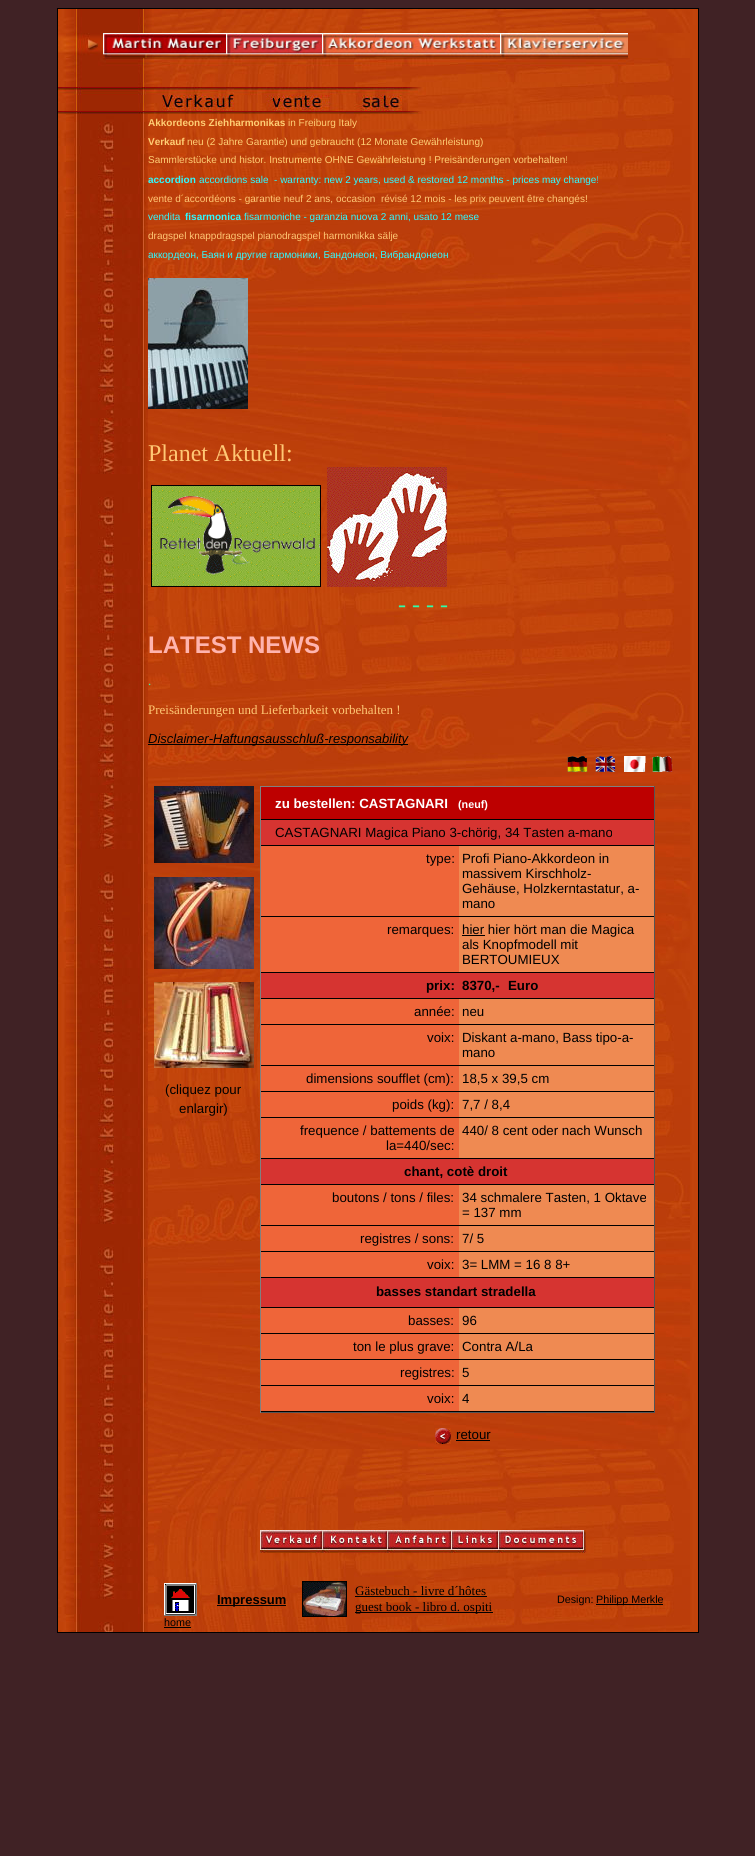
#include <cairo.h>
#include <math.h>
#include <stddef.h>


static void picture(cairo_t *cr, const char *path, double x, double y, double w, double h) {
    cairo_surface_t *image = cairo_image_surface_create_from_png(path);
    cairo_save(cr);
    cairo_set_source_surface(cr, image, x, y);
    cairo_rectangle(cr, x, y, w, h);
    cairo_fill(cr);
    cairo_restore(cr);
    cairo_surface_destroy(image);
}

int main(void) {
    cairo_surface_t *surface = cairo_image_surface_create(CAIRO_FORMAT_RGB24, 755, 1856);
    cairo_t *cr = cairo_create(surface);
    cairo_font_options_t *options = cairo_font_options_create();
    cairo_font_options_set_hint_metrics(options, CAIRO_HINT_METRICS_OFF);
    cairo_font_options_set_hint_style(options, CAIRO_HINT_STYLE_NONE);
    cairo_set_font_options(cr, options);
    cairo_set_miter_limit(cr, 4);
    cairo_set_source_rgb(cr, 0.251, 0.133, 0.145);
    cairo_paint(cr);
    cairo_set_source_rgb(cr, 0, 0, 0);
    cairo_rectangle(cr, 57, 8, 642, 1625);
    cairo_fill(cr);
    picture(cr, "img1.png", 58, 9, 640, 1623);
    picture(cr, "img2.png", 66, 9, 86, 24);
    picture(cr, "img3.png", 58, 33, 45, 25);
    picture(cr, "img4.png", 103, 33, 123, 25);
    picture(cr, "img5.png", 226, 33, 96, 25);
    picture(cr, "img6.png", 322, 33, 178, 25);
    picture(cr, "img7.png", 500, 33, 128, 25);
    picture(cr, "img8.png", 628, 33, 62, 25);
    picture(cr, "img9.png", 66, 58, 608, 29);
    picture(cr, "img10.png", 58, 87, 616, 27);
    picture(cr, "img11.png", 58, 114, 90, 1518);
    cairo_select_font_face(cr, "Liberation Sans", CAIRO_FONT_SLANT_NORMAL, CAIRO_FONT_WEIGHT_BOLD);
    cairo_set_font_size(cr, 10);
    cairo_set_source_rgb(cr, 1, 0.808, 0.455);
    cairo_move_to(cr, 148, 126);
    cairo_show_text(cr, "Akkordeons Ziehharmonikas");
    cairo_select_font_face(cr, "Liberation Sans", CAIRO_FONT_SLANT_NORMAL, CAIRO_FONT_WEIGHT_NORMAL);
    cairo_move_to(cr, 288, 126);
    cairo_show_text(cr, "in Freiburg Italy");
    cairo_select_font_face(cr, "Liberation Sans", CAIRO_FONT_SLANT_NORMAL, CAIRO_FONT_WEIGHT_BOLD);
    cairo_move_to(cr, 148, 145);
    cairo_show_text(cr, "Verkauf");
    cairo_select_font_face(cr, "Liberation Sans", CAIRO_FONT_SLANT_NORMAL, CAIRO_FONT_WEIGHT_NORMAL);
    cairo_move_to(cr, 187, 145);
    cairo_show_text(cr, "neu (2 Jahre Garantie) und gebraucht (12 Monate Gewährleistung)");
    cairo_move_to(cr, 148, 163);
    cairo_show_text(cr, "Sammlerstücke und histor. Instrumente OHNE Gewährleistung ! Preisänderungen vorbehalten!");
    cairo_select_font_face(cr, "Liberation Sans", CAIRO_FONT_SLANT_NORMAL, CAIRO_FONT_WEIGHT_BOLD);
    cairo_set_source_rgb(cr, 0.18, 0.98, 1);
    cairo_move_to(cr, 148, 183);
    cairo_show_text(cr, "accordion");
    cairo_select_font_face(cr, "Liberation Sans", CAIRO_FONT_SLANT_NORMAL, CAIRO_FONT_WEIGHT_NORMAL);
    cairo_move_to(cr, 199, 183);
    cairo_show_text(cr, "accordions sale  - warranty: new 2 years, used & restored 12 months - prices may change!");
    cairo_set_source_rgb(cr, 1, 0.78, 0.455);
    cairo_move_to(cr, 148, 202);
    cairo_show_text(cr, "vente d´accordéons - garantie neuf 2 ans, occasion  révisé 12 mois - les prix peuvent être changés!");
    cairo_set_source_rgb(cr, 0.18, 0.98, 1);
    cairo_move_to(cr, 148, 220);
    cairo_show_text(cr, "vendita");
    cairo_select_font_face(cr, "Liberation Sans", CAIRO_FONT_SLANT_NORMAL, CAIRO_FONT_WEIGHT_BOLD);
    cairo_move_to(cr, 185, 220);
    cairo_show_text(cr, "fisarmonica");
    cairo_select_font_face(cr, "Liberation Sans", CAIRO_FONT_SLANT_NORMAL, CAIRO_FONT_WEIGHT_NORMAL);
    cairo_move_to(cr, 244, 220);
    cairo_show_text(cr, "fisarmoniche - garanzia nuova 2 anni, usato 12 mese");
    cairo_set_source_rgb(cr, 1, 0.78, 0.455);
    cairo_move_to(cr, 148, 239);
    cairo_show_text(cr, "dragspel knappdragspel pianodragspel harmonikka sälje");
    cairo_set_source_rgb(cr, 0.18, 0.98, 1);
    cairo_move_to(cr, 148, 258);
    cairo_show_text(cr, "аккордеон, Баян и другие гармоники, Бандонеон, Вибрандонеон");
    picture(cr, "img12.png", 148, 278, 100, 131);
    cairo_select_font_face(cr, "Liberation Serif", CAIRO_FONT_SLANT_NORMAL, CAIRO_FONT_WEIGHT_NORMAL);
    cairo_set_font_size(cr, 24);
    cairo_set_source_rgb(cr, 1, 0.78, 0.455);
    cairo_move_to(cr, 148, 461);
    cairo_show_text(cr, "Planet Aktuell:");
    cairo_rectangle(cr, 151.5, 485.5, 169, 101);
    cairo_set_source_rgb(cr, 0, 0, 0);
    cairo_set_line_width(cr, 1);
    cairo_stroke(cr);
    picture(cr, "img13.png", 327, 467, 120, 120);
    picture(cr, "img14.png", 152, 486, 168, 100);
    cairo_set_source_rgb(cr, 0.18, 0.992, 0.667);
    cairo_move_to(cr, 398, 612);
    cairo_show_text(cr, "- - - -");
    cairo_select_font_face(cr, "Liberation Sans", CAIRO_FONT_SLANT_NORMAL, CAIRO_FONT_WEIGHT_BOLD);
    cairo_set_source_rgb(cr, 1, 0.706, 0.682);
    cairo_move_to(cr, 148, 653);
    cairo_show_text(cr, "LATEST NEWS");
    cairo_select_font_face(cr, "Liberation Serif", CAIRO_FONT_SLANT_NORMAL, CAIRO_FONT_WEIGHT_NORMAL);
    cairo_set_font_size(cr, 13);
    cairo_set_source_rgb(cr, 0.18, 0.992, 0.667);
    cairo_move_to(cr, 148, 685);
    cairo_show_text(cr, ".");
    cairo_set_source_rgb(cr, 1, 0.78, 0.455);
    cairo_move_to(cr, 148, 714);
    cairo_show_text(cr, "Preisänderungen und Lieferbarkeit vorbehalten !");
    cairo_set_source_rgb(cr, 0, 0, 0);
    cairo_rectangle(cr, 148, 744, 260, 1);
    cairo_fill(cr);
    cairo_select_font_face(cr, "Liberation Sans", CAIRO_FONT_SLANT_ITALIC, CAIRO_FONT_WEIGHT_NORMAL);
    cairo_move_to(cr, 148, 743);
    cairo_show_text(cr, "Disclaimer-Haftungsausschluß-responsability");
    picture(cr, "img15.png", 567, 756, 21, 16);
    picture(cr, "img16.png", 595, 756, 21, 16);
    picture(cr, "img17.png", 624, 756, 22, 16);
    picture(cr, "img18.png", 652, 756, 21, 16);
    picture(cr, "img19.png", 154, 786, 100, 77);
    picture(cr, "img20.png", 154, 877, 100, 92);
    picture(cr, "img21.png", 154, 982, 100, 86);
    cairo_select_font_face(cr, "Liberation Sans", CAIRO_FONT_SLANT_NORMAL, CAIRO_FONT_WEIGHT_NORMAL);
    cairo_set_font_size(cr, 13.3);
    cairo_move_to(cr, 165, 1094);
    cairo_show_text(cr, "(cliquez pour");
    cairo_move_to(cr, 179, 1113);
    cairo_show_text(cr, "enlargir)");
    cairo_set_source_rgb(cr, 0.502, 0.502, 0.502);
    cairo_rectangle(cr, 260, 786, 395, 1);
    cairo_fill(cr);
    cairo_set_source_rgb(cr, 0.333, 0.333, 0.333);
    cairo_rectangle(cr, 654, 786, 1, 627);
    cairo_fill(cr);
    cairo_rectangle(cr, 260, 1412, 395, 1);
    cairo_fill(cr);
    cairo_set_source_rgb(cr, 0.502, 0.502, 0.502);
    cairo_rectangle(cr, 260, 786, 1, 627);
    cairo_fill(cr);
    cairo_set_source_rgb(cr, 0.741, 0, 0);
    cairo_rectangle(cr, 261, 787, 393, 32);
    cairo_fill(cr);
    cairo_set_source_rgb(cr, 0, 0, 0);
    cairo_rectangle(cr, 261, 819, 393, 1);
    cairo_fill(cr);
    cairo_select_font_face(cr, "Liberation Sans", CAIRO_FONT_SLANT_NORMAL, CAIRO_FONT_WEIGHT_BOLD);
    cairo_set_source_rgb(cr, 1, 1, 1);
    cairo_move_to(cr, 275, 808);
    cairo_show_text(cr, "zu bestellen: CASTAGNARI");
    cairo_set_font_size(cr, 10.75);
    cairo_move_to(cr, 458, 808);
    cairo_show_text(cr, "(neuf)");
    cairo_set_source_rgb(cr, 0.839, 0.204, 0.192);
    cairo_rectangle(cr, 261, 820, 393, 25);
    cairo_fill(cr);
    cairo_set_source_rgb(cr, 0, 0, 0);
    cairo_rectangle(cr, 261, 845, 393, 1);
    cairo_fill(cr);
    cairo_select_font_face(cr, "Liberation Sans", CAIRO_FONT_SLANT_NORMAL, CAIRO_FONT_WEIGHT_NORMAL);
    cairo_set_font_size(cr, 13.3);
    cairo_move_to(cr, 275, 837);
    cairo_show_text(cr, "CASTAGNARI Magica Piano 3-chörig, 34 Tasten a-mano");
    cairo_set_source_rgb(cr, 0.937, 0.396, 0.224);
    cairo_rectangle(cr, 261, 846, 198, 70);
    cairo_fill(cr);
    cairo_set_source_rgb(cr, 0, 0, 0);
    cairo_rectangle(cr, 261, 916, 393, 1);
    cairo_fill(cr);
    cairo_move_to(cr, 426, 863);
    cairo_show_text(cr, "type:");
    cairo_set_source_rgb(cr, 0.937, 0.541, 0.322);
    cairo_rectangle(cr, 459, 846, 195, 70);
    cairo_fill(cr);
    cairo_set_source_rgb(cr, 0, 0, 0);
    cairo_move_to(cr, 462, 863);
    cairo_show_text(cr, "Profi Piano-Akkordeon in");
    cairo_move_to(cr, 462, 878);
    cairo_show_text(cr, "massivem Kirschholz-");
    cairo_move_to(cr, 462, 893);
    cairo_show_text(cr, "Gehäuse, Holzkerntastatur, a-");
    cairo_move_to(cr, 462, 908);
    cairo_show_text(cr, "mano");
    cairo_set_source_rgb(cr, 0.937, 0.396, 0.224);
    cairo_rectangle(cr, 261, 917, 198, 55);
    cairo_fill(cr);
    cairo_set_source_rgb(cr, 0, 0, 0);
    cairo_rectangle(cr, 261, 972, 393, 1);
    cairo_fill(cr);
    cairo_move_to(cr, 387, 934);
    cairo_show_text(cr, "remarques:");
    cairo_set_source_rgb(cr, 0.937, 0.541, 0.322);
    cairo_rectangle(cr, 459, 917, 195, 55);
    cairo_fill(cr);
    cairo_set_source_rgb(cr, 0, 0, 0);
    cairo_rectangle(cr, 462, 935, 23, 1);
    cairo_fill(cr);
    cairo_move_to(cr, 462, 934);
    cairo_show_text(cr, "hier hier hört man die Magica");
    cairo_move_to(cr, 462, 949);
    cairo_show_text(cr, "als Knopfmodell mit");
    cairo_move_to(cr, 462, 964);
    cairo_show_text(cr, "BERTOUMIEUX");
    cairo_set_source_rgb(cr, 0.839, 0.204, 0.192);
    cairo_rectangle(cr, 261, 973, 393, 25);
    cairo_fill(cr);
    cairo_set_source_rgb(cr, 0, 0, 0);
    cairo_rectangle(cr, 261, 998, 393, 1);
    cairo_fill(cr);
    cairo_select_font_face(cr, "Liberation Sans", CAIRO_FONT_SLANT_NORMAL, CAIRO_FONT_WEIGHT_BOLD);
    cairo_move_to(cr, 426, 990);
    cairo_show_text(cr, "prix:");
    cairo_move_to(cr, 462, 990);
    cairo_show_text(cr, "8370,-");
    cairo_move_to(cr, 508, 990);
    cairo_show_text(cr, "Euro");
    cairo_set_source_rgb(cr, 0.937, 0.396, 0.224);
    cairo_rectangle(cr, 261, 999, 198, 25);
    cairo_fill(cr);
    cairo_set_source_rgb(cr, 0, 0, 0);
    cairo_rectangle(cr, 261, 1024, 393, 1);
    cairo_fill(cr);
    cairo_select_font_face(cr, "Liberation Sans", CAIRO_FONT_SLANT_NORMAL, CAIRO_FONT_WEIGHT_NORMAL);
    cairo_move_to(cr, 414, 1016);
    cairo_show_text(cr, "année:");
    cairo_set_source_rgb(cr, 0.937, 0.541, 0.322);
    cairo_rectangle(cr, 459, 999, 195, 25);
    cairo_fill(cr);
    cairo_set_source_rgb(cr, 0, 0, 0);
    cairo_move_to(cr, 462, 1016);
    cairo_show_text(cr, "neu");
    cairo_set_source_rgb(cr, 0.937, 0.396, 0.224);
    cairo_rectangle(cr, 261, 1025, 198, 40);
    cairo_fill(cr);
    cairo_set_source_rgb(cr, 0, 0, 0);
    cairo_rectangle(cr, 261, 1065, 393, 1);
    cairo_fill(cr);
    cairo_move_to(cr, 427, 1042);
    cairo_show_text(cr, "voix:");
    cairo_set_source_rgb(cr, 0.937, 0.541, 0.322);
    cairo_rectangle(cr, 459, 1025, 195, 40);
    cairo_fill(cr);
    cairo_set_source_rgb(cr, 0, 0, 0);
    cairo_move_to(cr, 462, 1042);
    cairo_show_text(cr, "Diskant a-mano, Bass tipo-a-");
    cairo_move_to(cr, 462, 1057);
    cairo_show_text(cr, "mano");
    cairo_set_source_rgb(cr, 0.937, 0.396, 0.224);
    cairo_rectangle(cr, 261, 1066, 198, 25);
    cairo_fill(cr);
    cairo_set_source_rgb(cr, 0, 0, 0);
    cairo_rectangle(cr, 261, 1091, 393, 1);
    cairo_fill(cr);
    cairo_move_to(cr, 306, 1083);
    cairo_show_text(cr, "dimensions soufflet (cm):");
    cairo_set_source_rgb(cr, 0.937, 0.541, 0.322);
    cairo_rectangle(cr, 459, 1066, 195, 25);
    cairo_fill(cr);
    cairo_set_source_rgb(cr, 0, 0, 0);
    cairo_move_to(cr, 462, 1083);
    cairo_show_text(cr, "18,5 x 39,5 cm");
    cairo_set_source_rgb(cr, 0.937, 0.396, 0.224);
    cairo_rectangle(cr, 261, 1092, 198, 25);
    cairo_fill(cr);
    cairo_set_source_rgb(cr, 0, 0, 0);
    cairo_rectangle(cr, 261, 1117, 393, 1);
    cairo_fill(cr);
    cairo_move_to(cr, 392, 1109);
    cairo_show_text(cr, "poids (kg):");
    cairo_set_source_rgb(cr, 0.937, 0.541, 0.322);
    cairo_rectangle(cr, 459, 1092, 195, 25);
    cairo_fill(cr);
    cairo_set_source_rgb(cr, 0, 0, 0);
    cairo_move_to(cr, 462, 1109);
    cairo_show_text(cr, "7,7 / 8,4");
    cairo_set_source_rgb(cr, 0.937, 0.396, 0.224);
    cairo_rectangle(cr, 261, 1118, 198, 40);
    cairo_fill(cr);
    cairo_set_source_rgb(cr, 0, 0, 0);
    cairo_rectangle(cr, 261, 1158, 393, 1);
    cairo_fill(cr);
    cairo_move_to(cr, 300, 1135);
    cairo_show_text(cr, "frequence / battements de");
    cairo_move_to(cr, 386, 1150);
    cairo_show_text(cr, "la=440/sec:");
    cairo_set_source_rgb(cr, 0.937, 0.541, 0.322);
    cairo_rectangle(cr, 459, 1118, 195, 40);
    cairo_fill(cr);
    cairo_set_source_rgb(cr, 0, 0, 0);
    cairo_move_to(cr, 462, 1135);
    cairo_show_text(cr, "440/ 8 cent oder nach Wunsch");
    cairo_set_source_rgb(cr, 0.839, 0.204, 0.192);
    cairo_rectangle(cr, 261, 1159, 393, 25);
    cairo_fill(cr);
    cairo_set_source_rgb(cr, 0, 0, 0);
    cairo_rectangle(cr, 261, 1184, 393, 1);
    cairo_fill(cr);
    cairo_select_font_face(cr, "Liberation Sans", CAIRO_FONT_SLANT_NORMAL, CAIRO_FONT_WEIGHT_BOLD);
    cairo_move_to(cr, 404, 1176);
    cairo_show_text(cr, "chant, cotè droit");
    cairo_set_source_rgb(cr, 0.937, 0.396, 0.224);
    cairo_rectangle(cr, 261, 1185, 198, 40);
    cairo_fill(cr);
    cairo_set_source_rgb(cr, 0, 0, 0);
    cairo_rectangle(cr, 261, 1225, 393, 1);
    cairo_fill(cr);
    cairo_select_font_face(cr, "Liberation Sans", CAIRO_FONT_SLANT_NORMAL, CAIRO_FONT_WEIGHT_NORMAL);
    cairo_move_to(cr, 332, 1202);
    cairo_show_text(cr, "boutons / tons / files:");
    cairo_set_source_rgb(cr, 0.937, 0.541, 0.322);
    cairo_rectangle(cr, 459, 1185, 195, 40);
    cairo_fill(cr);
    cairo_set_source_rgb(cr, 0, 0, 0);
    cairo_move_to(cr, 462, 1202);
    cairo_show_text(cr, "34 schmalere Tasten, 1 Oktave");
    cairo_move_to(cr, 462, 1217);
    cairo_show_text(cr, "= 137 mm");
    cairo_set_source_rgb(cr, 0.937, 0.396, 0.224);
    cairo_rectangle(cr, 261, 1226, 198, 25);
    cairo_fill(cr);
    cairo_set_source_rgb(cr, 0, 0, 0);
    cairo_rectangle(cr, 261, 1251, 393, 1);
    cairo_fill(cr);
    cairo_move_to(cr, 360, 1243);
    cairo_show_text(cr, "registres / sons:");
    cairo_set_source_rgb(cr, 0.937, 0.541, 0.322);
    cairo_rectangle(cr, 459, 1226, 195, 25);
    cairo_fill(cr);
    cairo_set_source_rgb(cr, 0, 0, 0);
    cairo_move_to(cr, 462, 1243);
    cairo_show_text(cr, "7/ 5");
    cairo_set_source_rgb(cr, 0.937, 0.396, 0.224);
    cairo_rectangle(cr, 261, 1252, 198, 25);
    cairo_fill(cr);
    cairo_set_source_rgb(cr, 0, 0, 0);
    cairo_rectangle(cr, 261, 1277, 393, 1);
    cairo_fill(cr);
    cairo_move_to(cr, 427, 1269);
    cairo_show_text(cr, "voix:");
    cairo_set_source_rgb(cr, 0.937, 0.541, 0.322);
    cairo_rectangle(cr, 459, 1252, 195, 25);
    cairo_fill(cr);
    cairo_set_source_rgb(cr, 0, 0, 0);
    cairo_move_to(cr, 462, 1269);
    cairo_show_text(cr, "3= LMM = 16 8 8+");
    cairo_set_source_rgb(cr, 0.839, 0.204, 0.192);
    cairo_rectangle(cr, 261, 1278, 393, 29);
    cairo_fill(cr);
    cairo_set_source_rgb(cr, 0, 0, 0);
    cairo_rectangle(cr, 261, 1307, 393, 1);
    cairo_fill(cr);
    cairo_select_font_face(cr, "Liberation Sans", CAIRO_FONT_SLANT_NORMAL, CAIRO_FONT_WEIGHT_BOLD);
    cairo_move_to(cr, 376, 1296);
    cairo_show_text(cr, "basses standart stradella");
    cairo_set_source_rgb(cr, 0.937, 0.396, 0.224);
    cairo_rectangle(cr, 261, 1308, 198, 25);
    cairo_fill(cr);
    cairo_set_source_rgb(cr, 0, 0, 0);
    cairo_rectangle(cr, 261, 1333, 393, 1);
    cairo_fill(cr);
    cairo_select_font_face(cr, "Liberation Sans", CAIRO_FONT_SLANT_NORMAL, CAIRO_FONT_WEIGHT_NORMAL);
    cairo_move_to(cr, 408, 1325);
    cairo_show_text(cr, "basses:");
    cairo_set_source_rgb(cr, 0.937, 0.541, 0.322);
    cairo_rectangle(cr, 459, 1308, 195, 25);
    cairo_fill(cr);
    cairo_set_source_rgb(cr, 0, 0, 0);
    cairo_move_to(cr, 462, 1325);
    cairo_show_text(cr, "96");
    cairo_set_source_rgb(cr, 0.937, 0.396, 0.224);
    cairo_rectangle(cr, 261, 1334, 198, 25);
    cairo_fill(cr);
    cairo_set_source_rgb(cr, 0, 0, 0);
    cairo_rectangle(cr, 261, 1359, 393, 1);
    cairo_fill(cr);
    cairo_move_to(cr, 353, 1351);
    cairo_show_text(cr, "ton le plus grave:");
    cairo_set_source_rgb(cr, 0.937, 0.541, 0.322);
    cairo_rectangle(cr, 459, 1334, 195, 25);
    cairo_fill(cr);
    cairo_set_source_rgb(cr, 0, 0, 0);
    cairo_move_to(cr, 462, 1351);
    cairo_show_text(cr, "Contra A/La");
    cairo_set_source_rgb(cr, 0.937, 0.396, 0.224);
    cairo_rectangle(cr, 261, 1360, 198, 25);
    cairo_fill(cr);
    cairo_set_source_rgb(cr, 0, 0, 0);
    cairo_rectangle(cr, 261, 1385, 393, 1);
    cairo_fill(cr);
    cairo_move_to(cr, 400, 1377);
    cairo_show_text(cr, "registres:");
    cairo_set_source_rgb(cr, 0.937, 0.541, 0.322);
    cairo_rectangle(cr, 459, 1360, 195, 25);
    cairo_fill(cr);
    cairo_set_source_rgb(cr, 0, 0, 0);
    cairo_move_to(cr, 462, 1377);
    cairo_show_text(cr, "5");
    cairo_set_source_rgb(cr, 0.937, 0.396, 0.224);
    cairo_rectangle(cr, 261, 1386, 198, 25);
    cairo_fill(cr);
    cairo_set_source_rgb(cr, 0, 0, 0);
    cairo_rectangle(cr, 261, 1411, 393, 1);
    cairo_fill(cr);
    cairo_move_to(cr, 427, 1403);
    cairo_show_text(cr, "voix:");
    cairo_set_source_rgb(cr, 0.937, 0.541, 0.322);
    cairo_rectangle(cr, 459, 1386, 195, 25);
    cairo_fill(cr);
    cairo_set_source_rgb(cr, 0, 0, 0);
    cairo_move_to(cr, 462, 1403);
    cairo_show_text(cr, "4");
    picture(cr, "img22.png", 435, 1428, 16, 16);
    cairo_move_to(cr, 456, 1439);
    cairo_show_text(cr, "retour");
    cairo_rectangle(cr, 456, 1440, 34, 1);
    cairo_fill(cr);
    picture(cr, "img23.png", 260, 1530, 62, 23);
    picture(cr, "img24.png", 322, 1530, 65, 23);
    picture(cr, "img25.png", 387, 1530, 64, 23);
    picture(cr, "img26.png", 451, 1530, 47, 23);
    picture(cr, "img27.png", 498, 1530, 88, 23);
    cairo_rectangle(cr, 217, 1605, 69, 1);
    cairo_fill(cr);
    cairo_select_font_face(cr, "Liberation Sans", CAIRO_FONT_SLANT_NORMAL, CAIRO_FONT_WEIGHT_BOLD);
    cairo_set_font_size(cr, 13);
    cairo_move_to(cr, 217, 1604);
    cairo_show_text(cr, "Impressum");
    cairo_rectangle(cr, 302.5, 1581.5, 44, 35);
    cairo_stroke(cr);
    picture(cr, "img28.png", 303, 1582, 43, 34);
    cairo_select_font_face(cr, "Liberation Serif", CAIRO_FONT_SLANT_NORMAL, CAIRO_FONT_WEIGHT_NORMAL);
    cairo_move_to(cr, 355, 1595);
    cairo_show_text(cr, "Gästebuch - livre d´hôtes");
    cairo_rectangle(cr, 355, 1596, 132, 1);
    cairo_fill(cr);
    cairo_rectangle(cr, 355, 1612, 138, 1);
    cairo_fill(cr);
    cairo_move_to(cr, 355, 1611);
    cairo_show_text(cr, "guest book - libro d. ospiti");
    cairo_select_font_face(cr, "Liberation Sans", CAIRO_FONT_SLANT_NORMAL, CAIRO_FONT_WEIGHT_NORMAL);
    cairo_set_font_size(cr, 10.75);
    cairo_move_to(cr, 557, 1603);
    cairo_show_text(cr, "Design:");
    cairo_rectangle(cr, 596, 1604, 67, 1);
    cairo_fill(cr);
    cairo_move_to(cr, 596, 1603);
    cairo_show_text(cr, "Philipp Merkle");
    picture(cr, "img29.png", 164, 1583, 33, 33);
    cairo_move_to(cr, 164, 1626);
    cairo_show_text(cr, "home");
    cairo_rectangle(cr, 164, 1627, 27, 1);
    cairo_fill(cr);
    cairo_surface_write_to_png(surface, "page.png");
    cairo_font_options_destroy(options);
    cairo_destroy(cr);
    cairo_surface_destroy(surface);
    return 0;
}
